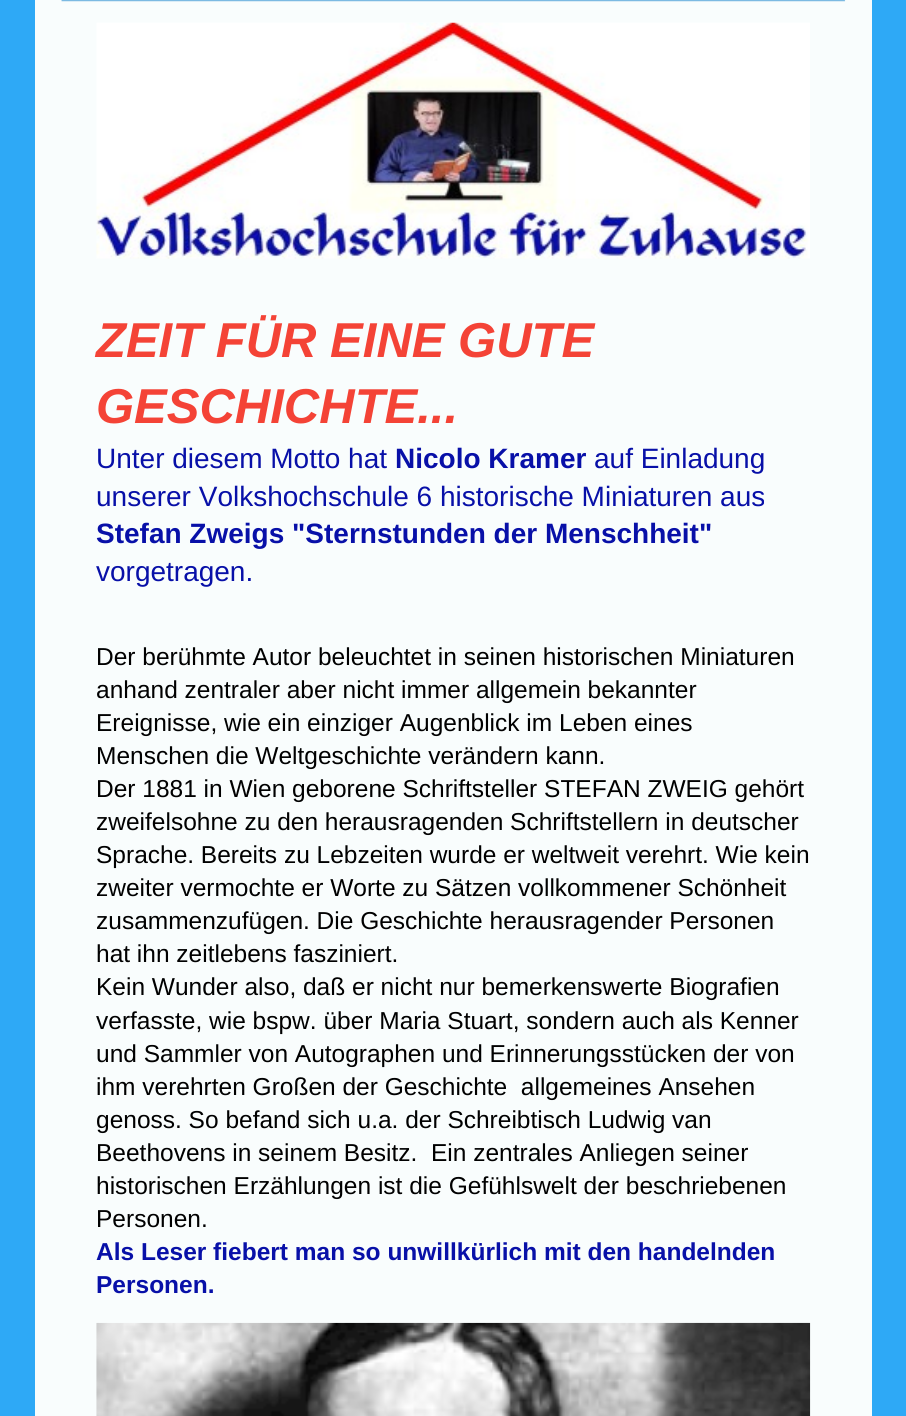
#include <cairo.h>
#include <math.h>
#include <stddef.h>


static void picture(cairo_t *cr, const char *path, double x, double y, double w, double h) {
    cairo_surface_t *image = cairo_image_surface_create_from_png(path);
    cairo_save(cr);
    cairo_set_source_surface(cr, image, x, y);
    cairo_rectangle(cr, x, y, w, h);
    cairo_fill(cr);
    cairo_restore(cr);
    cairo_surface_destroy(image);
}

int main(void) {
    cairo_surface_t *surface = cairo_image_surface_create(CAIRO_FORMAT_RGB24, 906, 1416);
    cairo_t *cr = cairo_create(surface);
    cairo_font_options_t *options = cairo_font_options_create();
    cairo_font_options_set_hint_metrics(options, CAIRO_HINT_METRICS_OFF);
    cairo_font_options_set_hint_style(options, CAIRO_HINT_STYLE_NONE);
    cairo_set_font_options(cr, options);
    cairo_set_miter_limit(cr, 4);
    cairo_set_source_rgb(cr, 0.18, 0.663, 0.961);
    cairo_paint(cr);
    cairo_set_source_rgb(cr, 0.976, 0.992, 0.992);
    cairo_rectangle(cr, 35, 0, 837, 1416);
    cairo_fill(cr);
    picture(cr, "img1.png", 61, 0, 785, 2);
    picture(cr, "img2.png", 96, 22, 714, 237);
    cairo_select_font_face(cr, "Liberation Sans", CAIRO_FONT_SLANT_ITALIC, CAIRO_FONT_WEIGHT_BOLD);
    cairo_set_font_size(cr, 49);
    cairo_set_source_rgb(cr, 0.957, 0.263, 0.212);
    cairo_move_to(cr, 96, 357);
    cairo_show_text(cr, "ZEIT FÜR EINE GUTE");
    cairo_move_to(cr, 96, 423);
    cairo_show_text(cr, "GESCHICHTE...");
    cairo_select_font_face(cr, "Liberation Sans", CAIRO_FONT_SLANT_NORMAL, CAIRO_FONT_WEIGHT_NORMAL);
    cairo_set_font_size(cr, 28);
    cairo_set_source_rgb(cr, 0.035, 0.063, 0.659);
    cairo_move_to(cr, 96, 468);
    cairo_show_text(cr, "Unter diesem Motto hat");
    cairo_select_font_face(cr, "Liberation Sans", CAIRO_FONT_SLANT_NORMAL, CAIRO_FONT_WEIGHT_BOLD);
    cairo_move_to(cr, 395, 468);
    cairo_show_text(cr, "Nicolo Kramer");
    cairo_select_font_face(cr, "Liberation Sans", CAIRO_FONT_SLANT_NORMAL, CAIRO_FONT_WEIGHT_NORMAL);
    cairo_move_to(cr, 594, 468);
    cairo_show_text(cr, "auf Einladung");
    cairo_move_to(cr, 96, 506);
    cairo_show_text(cr, "unserer Volkshochschule 6 historische Miniaturen aus");
    cairo_select_font_face(cr, "Liberation Sans", CAIRO_FONT_SLANT_NORMAL, CAIRO_FONT_WEIGHT_BOLD);
    cairo_move_to(cr, 96, 543);
    cairo_show_text(cr, "Stefan Zweigs \"Sternstunden der Menschheit\"");
    cairo_select_font_face(cr, "Liberation Sans", CAIRO_FONT_SLANT_NORMAL, CAIRO_FONT_WEIGHT_NORMAL);
    cairo_move_to(cr, 96, 581);
    cairo_show_text(cr, "vorgetragen.");
    cairo_set_font_size(cr, 24.5);
    cairo_set_source_rgb(cr, 0, 0, 0);
    cairo_move_to(cr, 96, 665);
    cairo_show_text(cr, "Der berühmte Autor beleuchtet in seinen historischen Miniaturen");
    cairo_move_to(cr, 96, 698);
    cairo_show_text(cr, "anhand zentraler aber nicht immer allgemein bekannter");
    cairo_move_to(cr, 96, 731);
    cairo_show_text(cr, "Ereignisse, wie ein einziger Augenblick im Leben eines");
    cairo_move_to(cr, 96, 764);
    cairo_show_text(cr, "Menschen die Weltgeschichte verändern kann.");
    cairo_move_to(cr, 96, 797);
    cairo_show_text(cr, "Der 1881 in Wien geborene Schriftsteller STEFAN ZWEIG gehört");
    cairo_move_to(cr, 96, 830);
    cairo_show_text(cr, "zweifelsohne zu den herausragenden Schriftstellern in deutscher");
    cairo_move_to(cr, 96, 863);
    cairo_show_text(cr, "Sprache. Bereits zu Lebzeiten wurde er weltweit verehrt. Wie kein");
    cairo_move_to(cr, 96, 896);
    cairo_show_text(cr, "zweiter vermochte er Worte zu Sätzen vollkommener Schönheit");
    cairo_move_to(cr, 96, 929);
    cairo_show_text(cr, "zusammenzufügen. Die Geschichte herausragender Personen");
    cairo_move_to(cr, 96, 962);
    cairo_show_text(cr, "hat ihn zeitlebens fasziniert.");
    cairo_move_to(cr, 96, 995);
    cairo_show_text(cr, "Kein Wunder also, daß er nicht nur bemerkenswerte Biografien");
    cairo_move_to(cr, 96, 1029);
    cairo_show_text(cr, "verfasste, wie bspw. über Maria Stuart, sondern auch als Kenner");
    cairo_move_to(cr, 96, 1062);
    cairo_show_text(cr, "und Sammler von Autographen und Erinnerungsstücken der von");
    cairo_move_to(cr, 96, 1095);
    cairo_show_text(cr, "ihm verehrten Großen der Geschichte  allgemeines Ansehen");
    cairo_move_to(cr, 96, 1128);
    cairo_show_text(cr, "genoss. So befand sich u.a. der Schreibtisch Ludwig van");
    cairo_move_to(cr, 96, 1161);
    cairo_show_text(cr, "Beethovens in seinem Besitz.  Ein zentrales Anliegen seiner");
    cairo_move_to(cr, 96, 1194);
    cairo_show_text(cr, "historischen Erzählungen ist die Gefühlswelt der beschriebenen");
    cairo_move_to(cr, 96, 1227);
    cairo_show_text(cr, "Personen.");
    cairo_select_font_face(cr, "Liberation Sans", CAIRO_FONT_SLANT_NORMAL, CAIRO_FONT_WEIGHT_BOLD);
    cairo_set_source_rgb(cr, 0.035, 0.063, 0.659);
    cairo_move_to(cr, 96, 1260);
    cairo_show_text(cr, "Als Leser fiebert man so unwillkürlich mit den handelnden");
    cairo_move_to(cr, 96, 1293);
    cairo_show_text(cr, "Personen.");
    picture(cr, "img3.png", 96, 1322, 715, 94);
    cairo_surface_write_to_png(surface, "page.png");
    cairo_font_options_destroy(options);
    cairo_destroy(cr);
    cairo_surface_destroy(surface);
    return 0;
}
